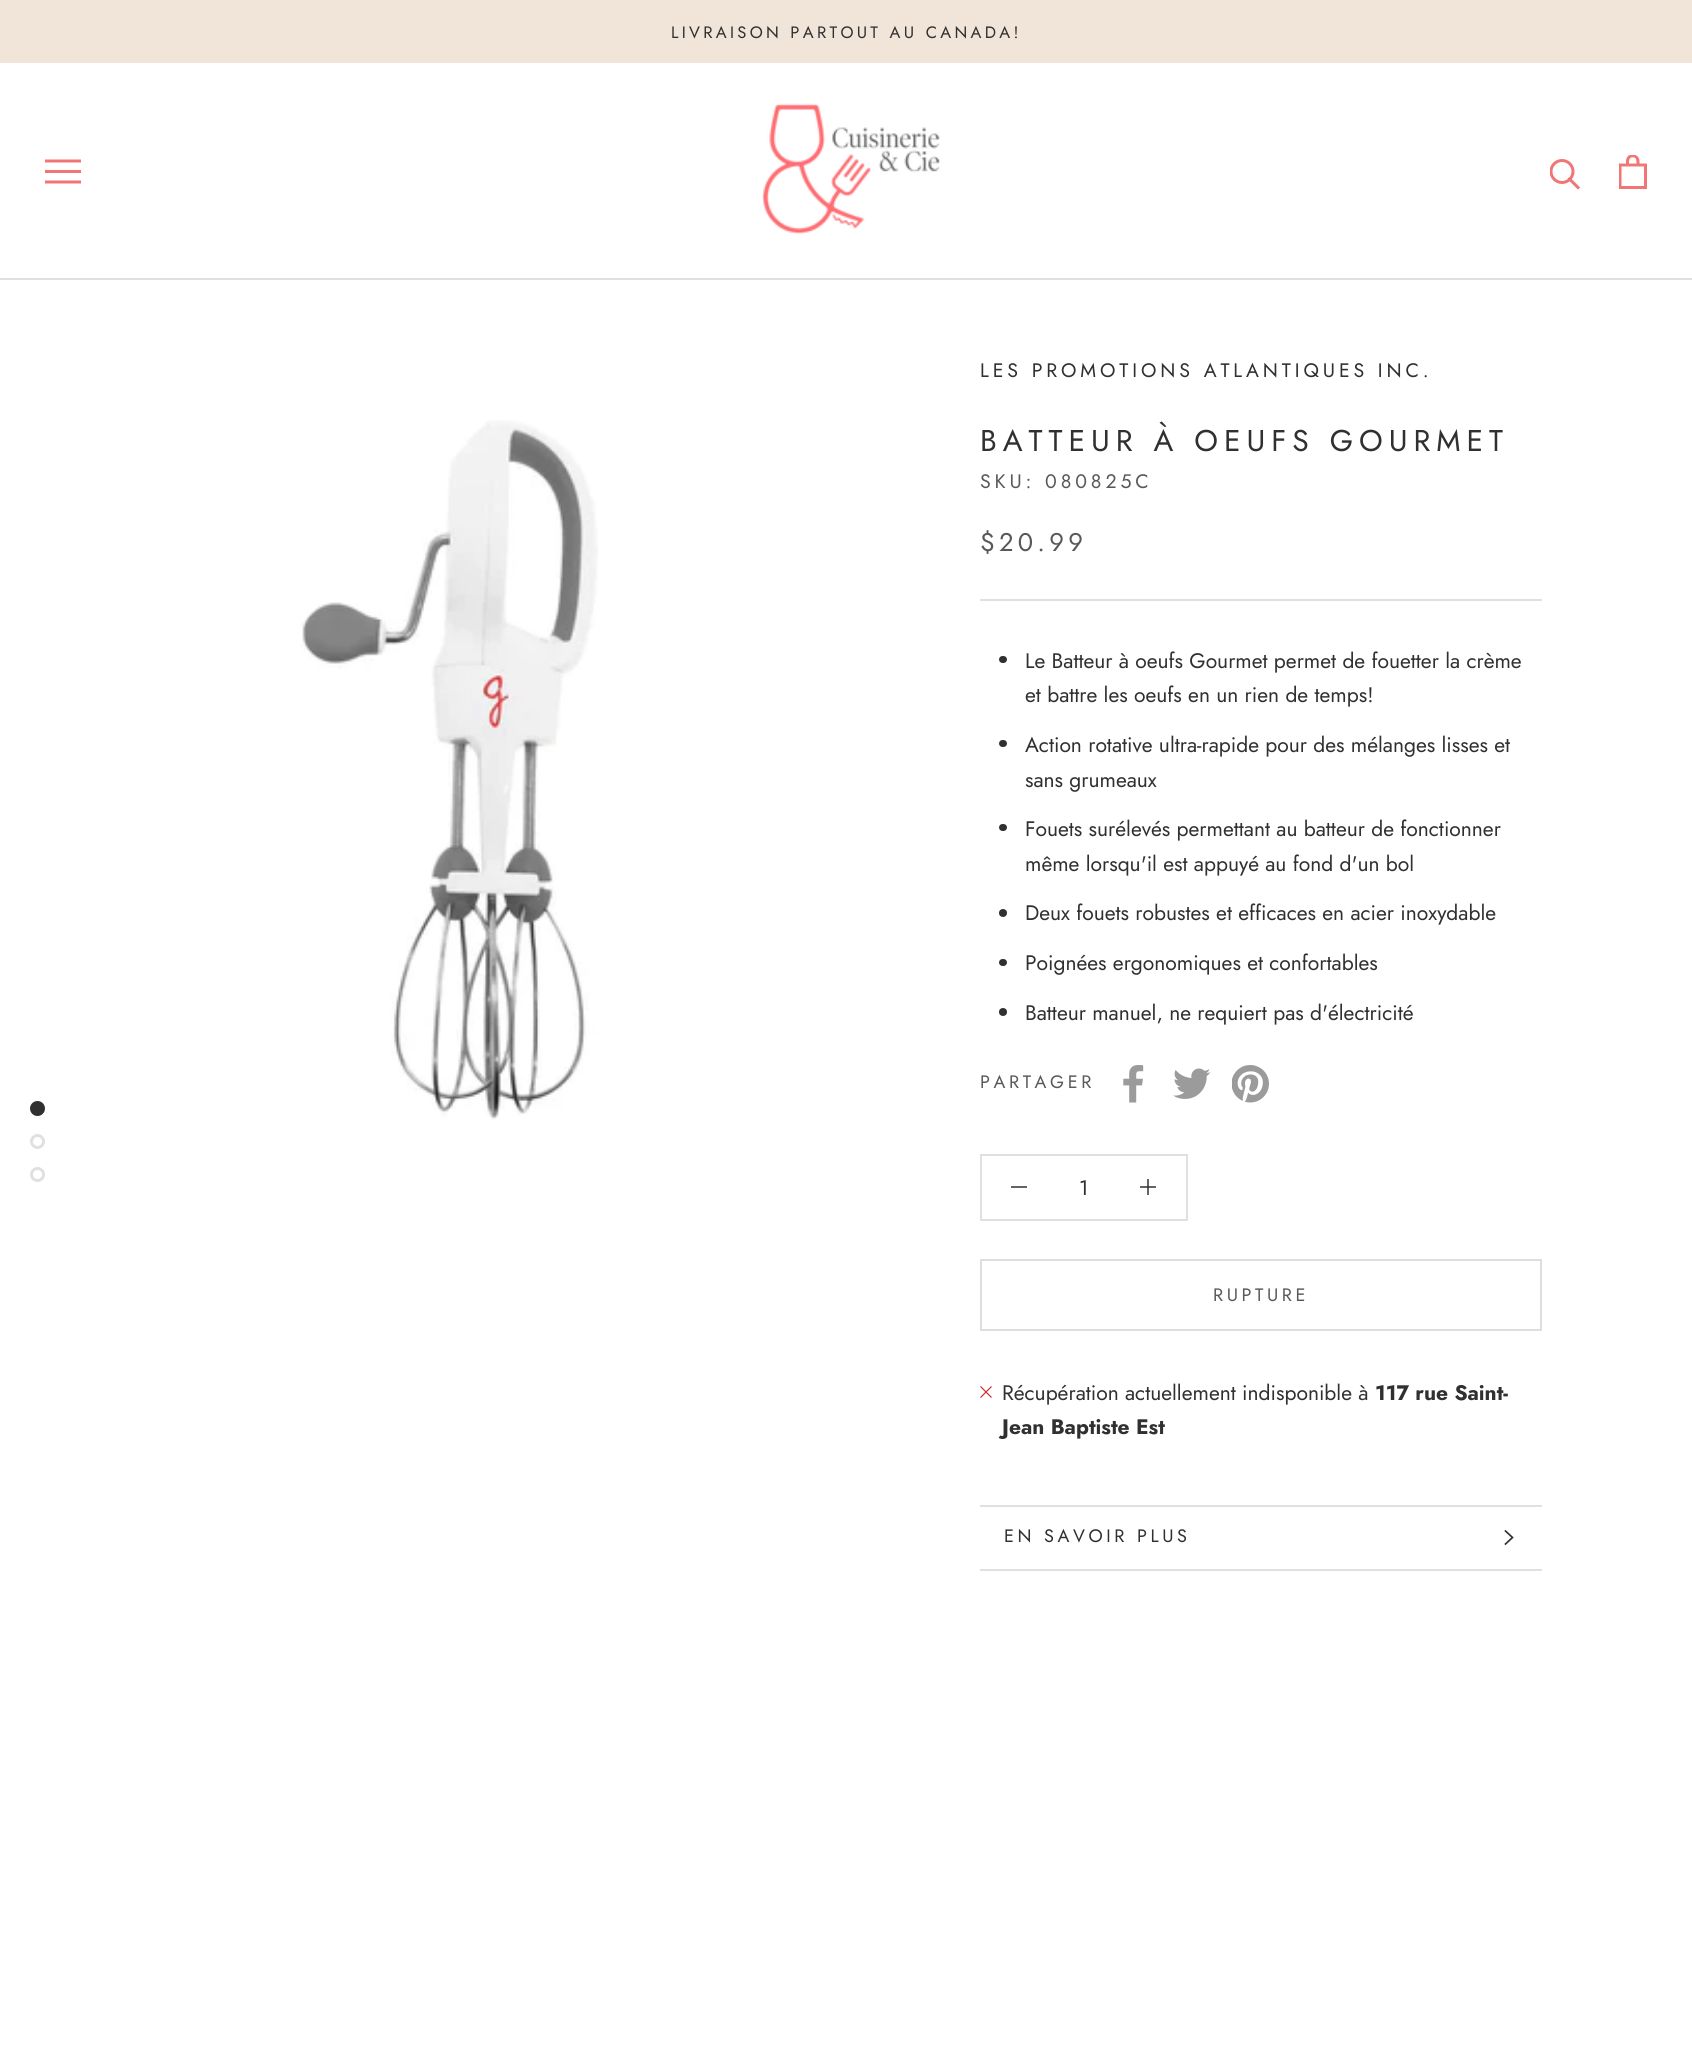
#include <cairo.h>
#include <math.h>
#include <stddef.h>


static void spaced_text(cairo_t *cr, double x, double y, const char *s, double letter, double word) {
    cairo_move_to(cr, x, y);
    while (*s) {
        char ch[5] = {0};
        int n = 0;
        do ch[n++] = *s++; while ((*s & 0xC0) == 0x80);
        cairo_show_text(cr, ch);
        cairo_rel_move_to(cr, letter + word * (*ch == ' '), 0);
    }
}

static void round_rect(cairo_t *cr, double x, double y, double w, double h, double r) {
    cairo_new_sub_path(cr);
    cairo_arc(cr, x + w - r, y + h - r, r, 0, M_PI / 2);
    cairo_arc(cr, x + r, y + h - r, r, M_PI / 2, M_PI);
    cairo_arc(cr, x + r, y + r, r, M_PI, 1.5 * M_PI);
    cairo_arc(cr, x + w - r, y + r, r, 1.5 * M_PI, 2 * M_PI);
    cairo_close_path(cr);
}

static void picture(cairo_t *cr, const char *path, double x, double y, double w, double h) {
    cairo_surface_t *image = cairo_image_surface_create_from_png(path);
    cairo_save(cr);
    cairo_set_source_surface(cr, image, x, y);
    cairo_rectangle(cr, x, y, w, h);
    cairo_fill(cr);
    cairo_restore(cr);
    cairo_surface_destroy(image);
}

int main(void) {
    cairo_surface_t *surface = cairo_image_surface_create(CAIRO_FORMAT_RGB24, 1692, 2067);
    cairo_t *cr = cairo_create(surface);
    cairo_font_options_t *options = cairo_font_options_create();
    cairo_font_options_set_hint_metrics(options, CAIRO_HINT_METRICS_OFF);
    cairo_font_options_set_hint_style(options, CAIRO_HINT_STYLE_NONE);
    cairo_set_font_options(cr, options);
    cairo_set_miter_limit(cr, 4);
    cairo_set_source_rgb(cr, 1, 1, 1);
    cairo_paint(cr);
    cairo_set_source_rgb(cr, 0.392, 0.392, 0.392);
    cairo_rectangle(cr, 1140, 1186, 16, 2);
    cairo_fill(cr);
    cairo_set_source_rgb(cr, 0.945, 0.894, 0.847);
    cairo_rectangle(cr, 0, 0, 1692, 63);
    cairo_fill(cr);
    cairo_select_font_face(cr, "Jost", CAIRO_FONT_SLANT_NORMAL, CAIRO_FONT_WEIGHT_NORMAL);
    cairo_set_font_size(cr, 16.5);
    cairo_set_source_rgb(cr, 0.188, 0.188, 0.188);
    spaced_text(cr, 671, 38, "LIVRAISON PARTOUT AU CANADA!", 3.3, 0);
    cairo_set_source_rgb(cr, 0.878, 0.878, 0.878);
    cairo_rectangle(cr, 0, 278, 1692, 2);
    cairo_fill(cr);
    cairo_set_source_rgb(cr, 0.949, 0.459, 0.463);
    cairo_new_path(cr);
    cairo_move_to(cr, 45, 183.5);
    cairo_line_to(cr, 45, 180.5);
    cairo_line_to(cr, 81, 180.5);
    cairo_line_to(cr, 81, 183.5);
    cairo_close_path(cr);
    cairo_move_to(cr, 45, 170);
    cairo_line_to(cr, 81, 170);
    cairo_line_to(cr, 81, 173);
    cairo_line_to(cr, 45, 173);
    cairo_close_path(cr);
    cairo_move_to(cr, 45, 159.5);
    cairo_line_to(cr, 81, 159.5);
    cairo_line_to(cr, 81, 162.5);
    cairo_line_to(cr, 45, 162.5);
    cairo_close_path(cr);
    cairo_fill(cr);
    picture(cr, "img1.png", 762, 103, 178, 132);
    cairo_new_path(cr);
    cairo_move_to(cr, 1578, 187.5);
    cairo_line_to(cr, 1569.5, 179);
    cairo_set_line_width(cr, 3);
    cairo_set_line_cap(cr, CAIRO_LINE_CAP_SQUARE);
    cairo_stroke(cr);
    cairo_save(cr);
    cairo_rectangle(cr, 1550, 159, 31, 32);
    cairo_clip(cr);
    cairo_arc(cr, 1562, 171.5, 11, 0, 2 * M_PI);
    cairo_set_line_cap(cr, CAIRO_LINE_CAP_BUTT);
    cairo_stroke(cr);
    cairo_restore(cr);
    picture(cr, "img2.png", 1619, 155, 28, 34);
    picture(cr, "img3.png", 300, 420, 298, 700);
    cairo_set_source_rgb(cr, 0.188, 0.188, 0.188);
    cairo_arc(cr, 37.5, 1108.5, 6, 0, 2 * M_PI);
    cairo_fill_preserve(cr);
    cairo_set_line_cap(cr, CAIRO_LINE_CAP_BUTT);
    cairo_stroke(cr);
    cairo_arc(cr, 37.5, 1141.5, 6, 0, 2 * M_PI);
    cairo_set_source_rgb(cr, 0.878, 0.878, 0.878);
    cairo_stroke(cr);
    cairo_arc(cr, 37.5, 1174.5, 6, 0, 2 * M_PI);
    cairo_stroke(cr);
    cairo_set_font_size(cr, 19.5);
    cairo_set_source_rgb(cr, 0.188, 0.188, 0.188);
    spaced_text(cr, 980, 377, "LES PROMOTIONS ATLANTIQUES INC.", 3.9, 0);
    cairo_set_font_size(cr, 30);
    spaced_text(cr, 980, 451, "BATTEUR À OEUFS GOURMET", 6, 0);
    cairo_set_font_size(cr, 19.5);
    cairo_set_source_rgb(cr, 0.349, 0.349, 0.349);
    spaced_text(cr, 980, 488, "SKU: 080825C", 3.9, 0);
    cairo_set_font_size(cr, 25.5);
    spaced_text(cr, 980, 551, "$20.99", 4.25, 0);
    cairo_set_source_rgb(cr, 0.878, 0.878, 0.878);
    cairo_rectangle(cr, 980, 599, 562, 2);
    cairo_fill(cr);
    cairo_set_source_rgb(cr, 0.188, 0.188, 0.188);
    round_rect(cr, 999, 656, 8, 7, 3.5);
    cairo_fill(cr);
    cairo_set_font_size(cr, 21);
    cairo_move_to(cr, 1025, 668);
    cairo_show_text(cr, "Le Batteur à oeufs Gourmet permet de fouetter la crème");
    cairo_move_to(cr, 1025, 702);
    cairo_show_text(cr, "et battre les oeufs en un rien de temps!");
    round_rect(cr, 999, 740, 8, 7, 3.5);
    cairo_fill(cr);
    cairo_move_to(cr, 1025, 752);
    cairo_show_text(cr, "Action rotative ultra-rapide pour des mélanges lisses et");
    cairo_move_to(cr, 1025, 787);
    cairo_show_text(cr, "sans grumeaux");
    round_rect(cr, 999, 824, 8, 7, 3.5);
    cairo_fill(cr);
    cairo_move_to(cr, 1025, 836);
    cairo_show_text(cr, "Fouets surélevés permettant au batteur de fonctionner");
    cairo_move_to(cr, 1025, 871);
    cairo_show_text(cr, "même lorsqu'il est appuyé au fond d'un bol");
    cairo_new_path(cr);
    cairo_arc(cr, 1003, 913, 4, 0, 2 * M_PI);
    cairo_fill(cr);
    cairo_move_to(cr, 1025, 920);
    cairo_show_text(cr, "Deux fouets robustes et efficaces en acier inoxydable");
    round_rect(cr, 999, 959, 8, 7, 3.5);
    cairo_fill(cr);
    cairo_move_to(cr, 1025, 970);
    cairo_show_text(cr, "Poignées ergonomiques et confortables");
    cairo_new_path(cr);
    cairo_arc(cr, 1003, 1012, 4, 0, 2 * M_PI);
    cairo_fill(cr);
    cairo_move_to(cr, 1025, 1020);
    cairo_show_text(cr, "Batteur manuel, ne requiert pas d'électricité");
    cairo_set_font_size(cr, 18);
    cairo_set_source_rgb(cr, 0.349, 0.349, 0.349);
    spaced_text(cr, 980, 1088, "PARTAGER", 3.6, 0);
    picture(cr, "img4.png", 1123, 1065, 21, 38);
    picture(cr, "img5.png", 1173, 1068, 38, 31);
    picture(cr, "img6.png", 1232, 1065, 37, 38);
    cairo_rectangle(cr, 981, 1155, 206, 65);
    cairo_set_source_rgb(cr, 0.878, 0.878, 0.878);
    cairo_set_line_width(cr, 2);
    cairo_stroke(cr);
    cairo_set_source_rgb(cr, 0.392, 0.392, 0.392);
    cairo_rectangle(cr, 1011, 1186, 16, 2);
    cairo_fill(cr);
    cairo_set_font_size(cr, 21);
    cairo_set_source_rgb(cr, 0.188, 0.188, 0.188);
    cairo_move_to(cr, 1079, 1195);
    cairo_show_text(cr, "1");
    cairo_set_source_rgb(cr, 0.392, 0.392, 0.392);
    cairo_rectangle(cr, 1147, 1179, 2, 16);
    cairo_fill(cr);
    cairo_set_source_rgb(cr, 0.239, 0.239, 0.239);
    cairo_rectangle(cr, 1147, 1186, 2, 2);
    cairo_fill(cr);
    cairo_rectangle(cr, 981, 1260, 560, 70);
    cairo_set_source_rgb(cr, 0.871, 0.871, 0.871);
    cairo_stroke(cr);
    cairo_set_font_size(cr, 18);
    cairo_set_source_rgb(cr, 0.349, 0.349, 0.349);
    spaced_text(cr, 1213, 1301, "RUPTURE", 3.6, 0);
    cairo_new_path(cr);
    cairo_move_to(cr, 991.5, 1397.5);
    cairo_line_to(cr, 980.5, 1386.5);
    cairo_move_to(cr, 991.5, 1386.5);
    cairo_line_to(cr, 980.5, 1397.5);
    cairo_set_source_rgb(cr, 0.796, 0.169, 0.169);
    cairo_set_line_width(cr, 1.2);
    cairo_stroke(cr);
    cairo_set_font_size(cr, 21);
    cairo_set_source_rgb(cr, 0.188, 0.188, 0.188);
    cairo_move_to(cr, 1002, 1400);
    cairo_show_text(cr, "Récupération actuellement indisponible à");
    cairo_select_font_face(cr, "Jost", CAIRO_FONT_SLANT_NORMAL, CAIRO_FONT_WEIGHT_BOLD);
    cairo_move_to(cr, 1375, 1400);
    cairo_show_text(cr, "117 rue Saint-");
    cairo_move_to(cr, 1002, 1434);
    cairo_show_text(cr, "Jean Baptiste Est");
    cairo_set_source_rgb(cr, 0.878, 0.878, 0.878);
    cairo_rectangle(cr, 980, 1505, 562, 2);
    cairo_fill(cr);
    cairo_rectangle(cr, 980, 1569, 562, 2);
    cairo_fill(cr);
    cairo_select_font_face(cr, "Jost", CAIRO_FONT_SLANT_NORMAL, CAIRO_FONT_WEIGHT_NORMAL);
    cairo_set_font_size(cr, 18);
    cairo_set_source_rgb(cr, 0.188, 0.188, 0.188);
    spaced_text(cr, 1004, 1542, "EN SAVOIR PLUS", 3.6, 0);
    cairo_new_path(cr);
    cairo_move_to(cr, 1505.5, 1531);
    cairo_line_to(cr, 1512.5, 1537.5);
    cairo_line_to(cr, 1505.5, 1544);
    cairo_set_line_width(cr, 1.7);
    cairo_set_line_cap(cr, CAIRO_LINE_CAP_SQUARE);
    cairo_stroke(cr);
    cairo_surface_write_to_png(surface, "page.png");
    cairo_font_options_destroy(options);
    cairo_destroy(cr);
    cairo_surface_destroy(surface);
    return 0;
}
